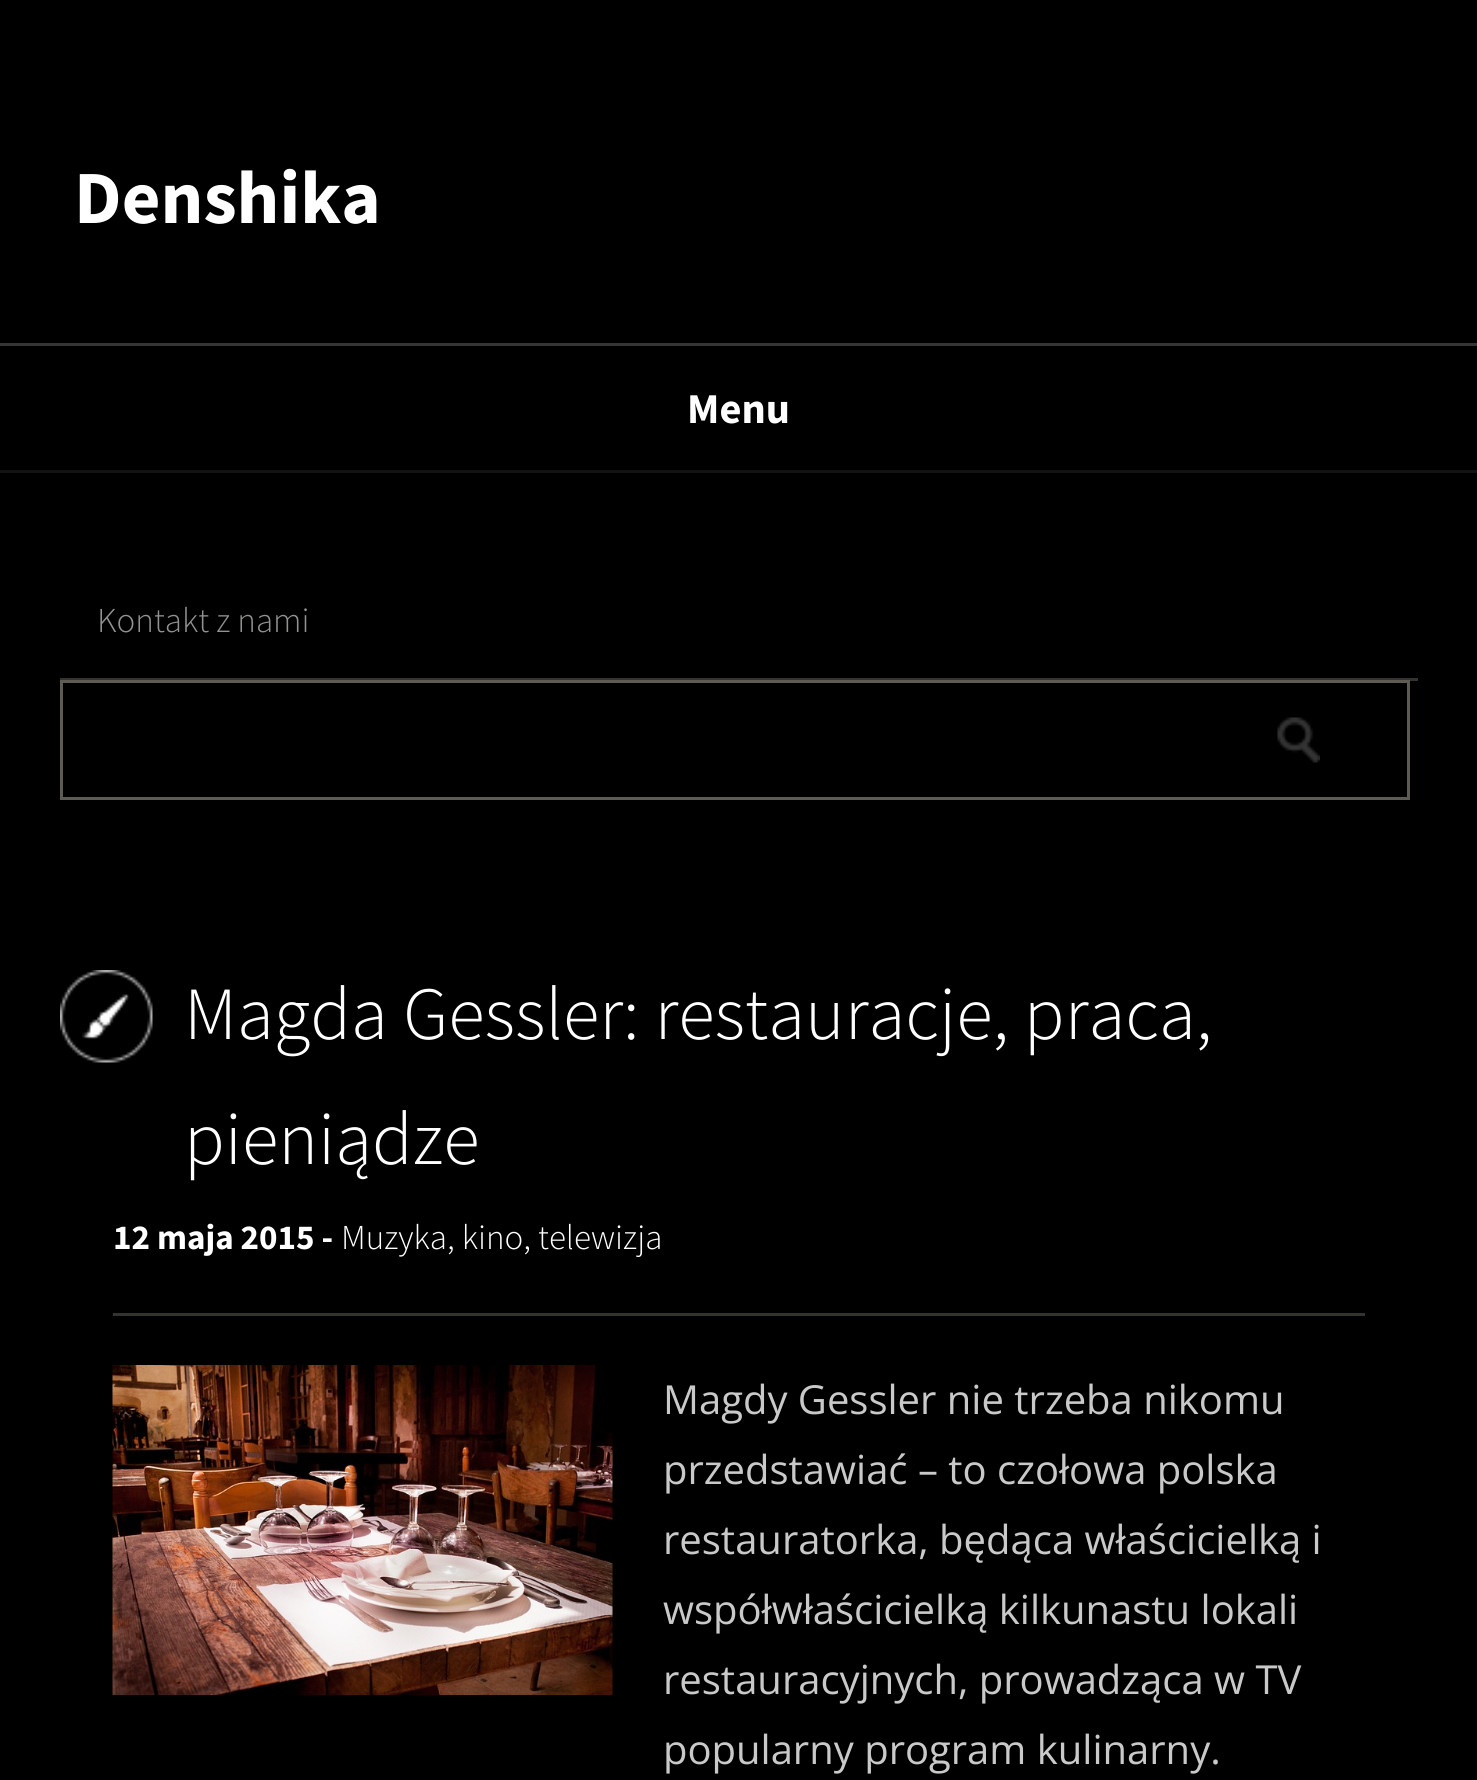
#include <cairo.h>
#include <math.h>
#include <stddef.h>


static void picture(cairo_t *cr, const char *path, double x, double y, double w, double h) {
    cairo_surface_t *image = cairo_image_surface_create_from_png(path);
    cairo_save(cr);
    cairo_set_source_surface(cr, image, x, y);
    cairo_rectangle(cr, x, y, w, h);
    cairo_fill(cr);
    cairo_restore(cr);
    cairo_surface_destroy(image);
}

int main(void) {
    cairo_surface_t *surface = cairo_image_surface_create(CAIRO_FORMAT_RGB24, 1477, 1780);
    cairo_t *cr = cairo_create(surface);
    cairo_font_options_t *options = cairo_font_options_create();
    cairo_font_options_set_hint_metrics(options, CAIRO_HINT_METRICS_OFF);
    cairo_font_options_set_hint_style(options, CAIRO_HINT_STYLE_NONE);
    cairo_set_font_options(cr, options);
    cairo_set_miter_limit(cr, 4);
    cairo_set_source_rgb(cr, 0, 0, 0);
    cairo_paint(cr);
    cairo_select_font_face(cr, "Source Sans Pro", CAIRO_FONT_SLANT_NORMAL, CAIRO_FONT_WEIGHT_BOLD);
    cairo_set_font_size(cr, 75);
    cairo_set_source_rgb(cr, 1, 1, 1);
    cairo_move_to(cr, 74, 223);
    cairo_show_text(cr, "Denshika");
    cairo_set_source_rgb(cr, 0.208, 0.208, 0.208);
    cairo_rectangle(cr, 0, 343, 1477, 3);
    cairo_fill(cr);
    cairo_set_source_rgb(cr, 0.078, 0.078, 0.078);
    cairo_rectangle(cr, 0, 470, 1477, 3);
    cairo_fill(cr);
    cairo_set_font_size(cr, 42.5);
    cairo_set_source_rgb(cr, 1, 1, 1);
    cairo_move_to(cr, 687, 423);
    cairo_show_text(cr, "Menu");
    cairo_set_source_rgb(cr, 0.2, 0.2, 0.188);
    cairo_rectangle(cr, 60, 678, 1358, 3);
    cairo_fill(cr);
    cairo_select_font_face(cr, "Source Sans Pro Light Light", CAIRO_FONT_SLANT_NORMAL, CAIRO_FONT_WEIGHT_NORMAL);
    cairo_set_font_size(cr, 35);
    cairo_set_source_rgb(cr, 0.573, 0.573, 0.569);
    cairo_move_to(cr, 97, 632);
    cairo_show_text(cr, "Kontakt z nami");
    cairo_rectangle(cr, 61.5, 681.5, 1347, 117);
    cairo_set_source_rgb(cr, 0.369, 0.357, 0.325);
    cairo_set_line_width(cr, 3);
    cairo_stroke(cr);
    picture(cr, "img1.png", 1277, 717, 43, 46);
    picture(cr, "img2.png", 60, 970, 93, 93);
    cairo_set_font_size(cr, 75);
    cairo_set_source_rgb(cr, 1, 1, 1);
    cairo_move_to(cr, 184, 1039);
    cairo_show_text(cr, "Magda Gessler: restauracje, praca,");
    cairo_move_to(cr, 184, 1164);
    cairo_show_text(cr, "pieniądze");
    cairo_set_source_rgb(cr, 0.2, 0.2, 0.188);
    cairo_rectangle(cr, 113, 1313, 1252, 3);
    cairo_fill(cr);
    cairo_select_font_face(cr, "Source Sans Pro", CAIRO_FONT_SLANT_NORMAL, CAIRO_FONT_WEIGHT_BOLD);
    cairo_set_font_size(cr, 35);
    cairo_set_source_rgb(cr, 1, 1, 1);
    cairo_move_to(cr, 113, 1249);
    cairo_show_text(cr, "12 maja 2015 -");
    cairo_select_font_face(cr, "Source Sans Pro Light Light", CAIRO_FONT_SLANT_NORMAL, CAIRO_FONT_WEIGHT_NORMAL);
    cairo_move_to(cr, 341, 1249);
    cairo_show_text(cr, "Muzyka, kino, telewizja");
    picture(cr, "img3.png", 112, 1365, 501, 330);
    cairo_select_font_face(cr, "Open Sans", CAIRO_FONT_SLANT_NORMAL, CAIRO_FONT_WEIGHT_NORMAL);
    cairo_set_font_size(cr, 40);
    cairo_set_source_rgb(cr, 0.788, 0.788, 0.788);
    cairo_move_to(cr, 663, 1414);
    cairo_show_text(cr, "Magdy Gessler nie trzeba nikomu");
    cairo_move_to(cr, 663, 1484);
    cairo_show_text(cr, "przedstawiać – to czołowa polska");
    cairo_move_to(cr, 663, 1554);
    cairo_show_text(cr, "restauratorka, będąca właścicielką i");
    cairo_move_to(cr, 663, 1624);
    cairo_show_text(cr, "współwłaścicielką kilkunastu lokali");
    cairo_move_to(cr, 663, 1694);
    cairo_show_text(cr, "restauracyjnych, prowadząca w TV");
    cairo_move_to(cr, 663, 1764);
    cairo_show_text(cr, "popularny program kulinarny.");
    cairo_surface_write_to_png(surface, "page.png");
    cairo_font_options_destroy(options);
    cairo_destroy(cr);
    cairo_surface_destroy(surface);
    return 0;
}
